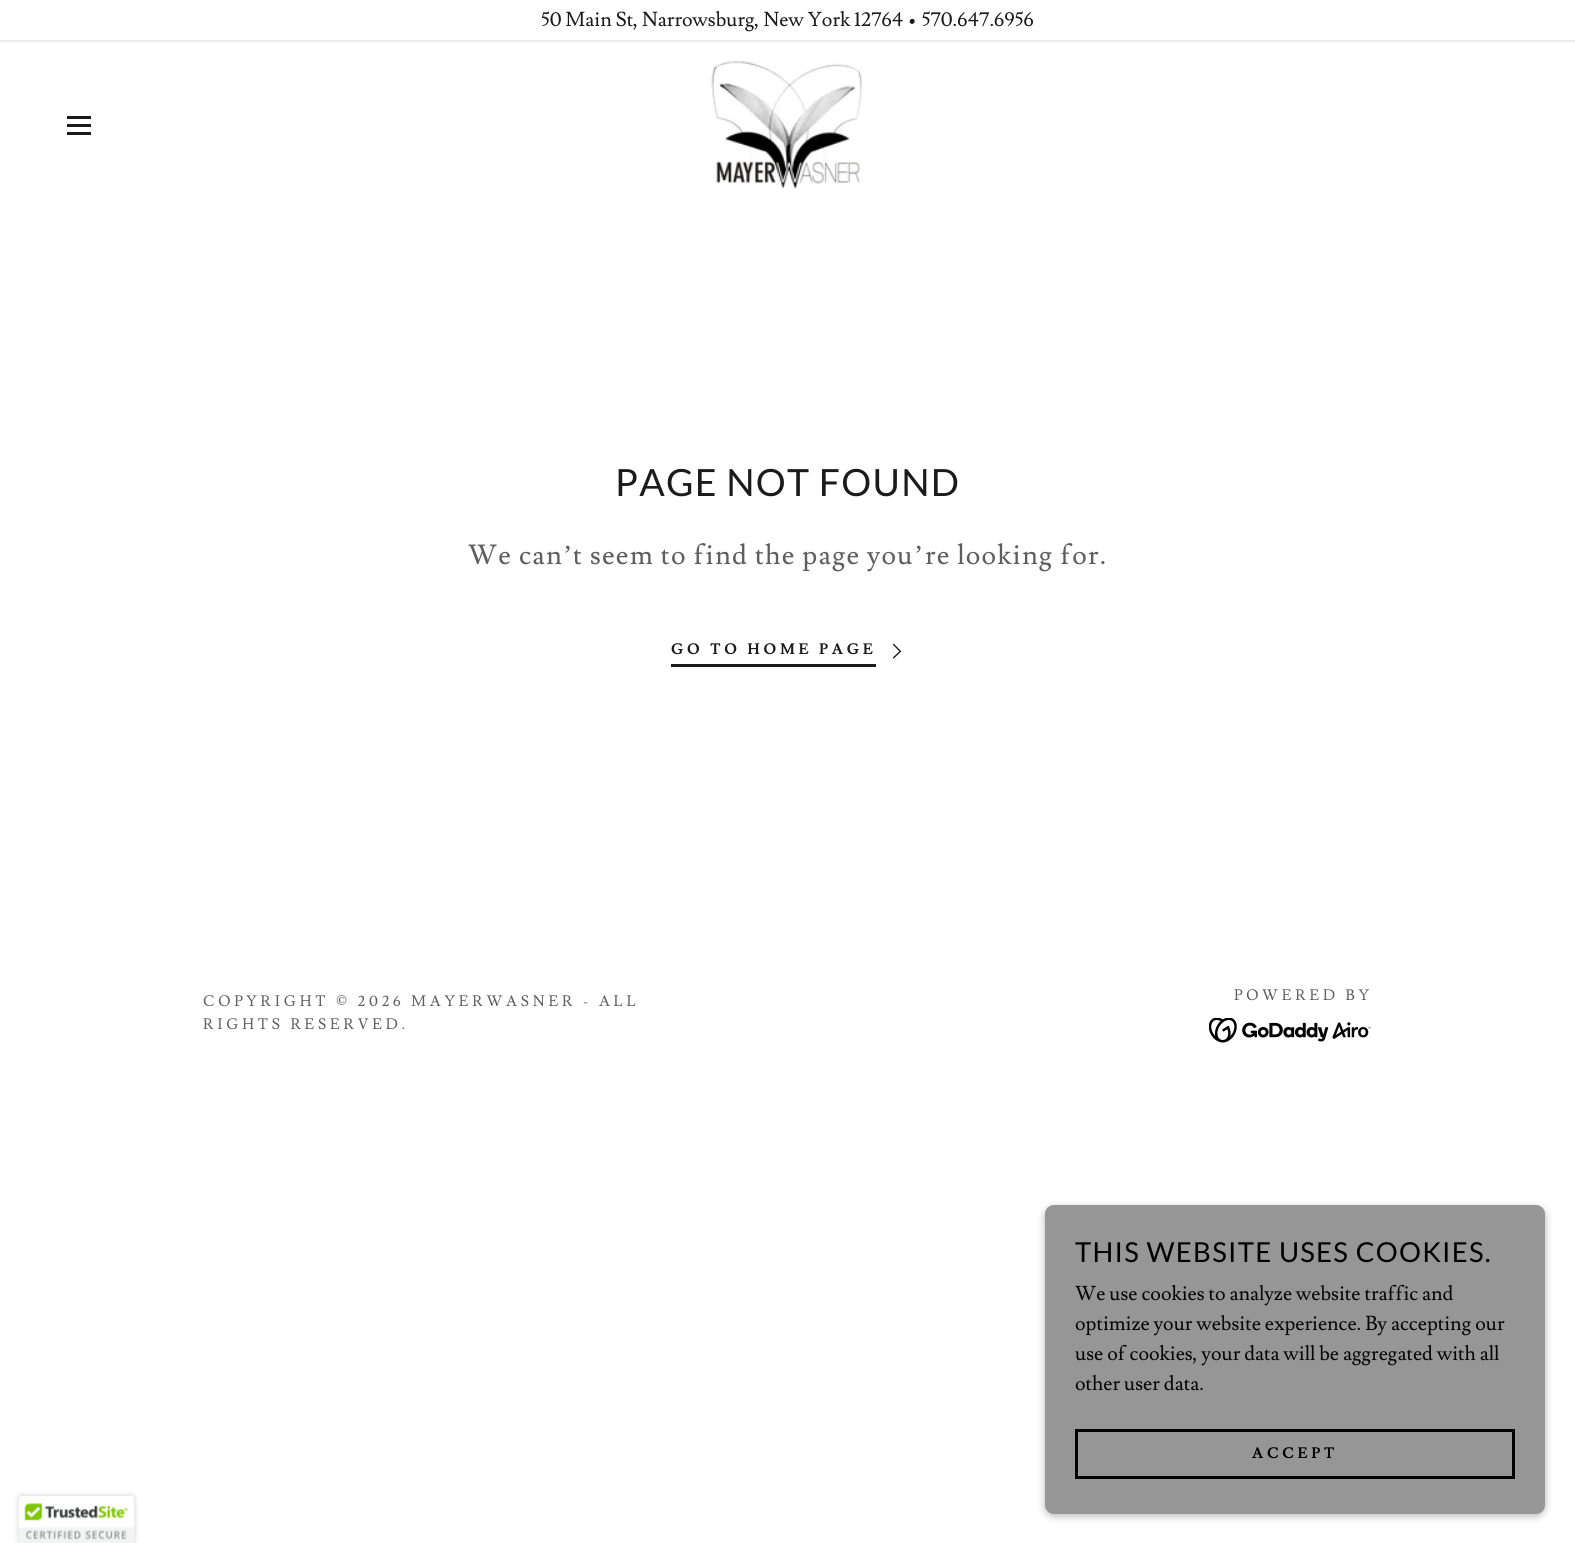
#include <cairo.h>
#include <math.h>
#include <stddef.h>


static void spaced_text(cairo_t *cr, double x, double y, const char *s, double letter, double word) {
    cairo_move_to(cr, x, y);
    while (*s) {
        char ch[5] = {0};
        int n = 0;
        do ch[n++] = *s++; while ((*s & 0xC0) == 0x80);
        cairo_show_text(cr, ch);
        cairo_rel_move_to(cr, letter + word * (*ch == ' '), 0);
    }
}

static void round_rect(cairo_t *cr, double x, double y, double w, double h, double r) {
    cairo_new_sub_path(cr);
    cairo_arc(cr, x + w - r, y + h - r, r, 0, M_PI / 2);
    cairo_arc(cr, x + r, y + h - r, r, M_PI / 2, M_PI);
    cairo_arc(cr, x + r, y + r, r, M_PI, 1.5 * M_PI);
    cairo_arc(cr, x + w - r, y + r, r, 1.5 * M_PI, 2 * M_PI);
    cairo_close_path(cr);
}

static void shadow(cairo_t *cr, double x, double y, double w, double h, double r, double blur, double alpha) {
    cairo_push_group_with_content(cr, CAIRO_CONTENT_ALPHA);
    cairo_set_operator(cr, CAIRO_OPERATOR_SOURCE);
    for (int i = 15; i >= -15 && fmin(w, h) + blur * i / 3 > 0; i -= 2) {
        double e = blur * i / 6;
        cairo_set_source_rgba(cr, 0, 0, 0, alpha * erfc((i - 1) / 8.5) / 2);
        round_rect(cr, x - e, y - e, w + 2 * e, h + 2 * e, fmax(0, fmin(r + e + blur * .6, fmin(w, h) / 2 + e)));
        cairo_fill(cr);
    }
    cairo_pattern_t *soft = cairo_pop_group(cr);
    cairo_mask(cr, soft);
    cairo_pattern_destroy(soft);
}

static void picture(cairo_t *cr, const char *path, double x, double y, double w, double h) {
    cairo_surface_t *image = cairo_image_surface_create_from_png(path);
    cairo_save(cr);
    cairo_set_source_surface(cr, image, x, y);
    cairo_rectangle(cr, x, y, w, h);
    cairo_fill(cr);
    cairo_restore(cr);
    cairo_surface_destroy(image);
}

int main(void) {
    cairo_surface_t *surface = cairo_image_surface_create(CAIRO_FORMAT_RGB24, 1575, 1543);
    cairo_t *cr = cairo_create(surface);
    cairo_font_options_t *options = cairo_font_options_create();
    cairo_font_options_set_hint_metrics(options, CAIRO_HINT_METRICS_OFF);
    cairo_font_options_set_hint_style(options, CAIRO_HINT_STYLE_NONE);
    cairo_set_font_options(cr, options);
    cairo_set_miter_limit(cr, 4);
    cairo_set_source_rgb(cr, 1, 1, 1);
    cairo_paint(cr);
    cairo_save(cr);
    cairo_rectangle(cr, 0, 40, 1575, 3);
    cairo_clip(cr);
    cairo_set_source_rgb(cr, 0, 0, 0);
    shadow(cr, 0, 0, 1575, 40, 0, 2.5, 0.2);
    cairo_restore(cr);
    cairo_select_font_face(cr, "Lusitana", CAIRO_FONT_SLANT_NORMAL, CAIRO_FONT_WEIGHT_NORMAL);
    cairo_set_font_size(cr, 20);
    cairo_set_source_rgb(cr, 0.106, 0.106, 0.106);
    cairo_move_to(cr, 541, 26);
    cairo_show_text(cr, "50 Main St, Narrowsburg, New York 12764 • 570.647.6956");
    cairo_rectangle(cr, 67, 116, 24, 3);
    cairo_fill(cr);
    cairo_rectangle(cr, 67, 124, 24, 3);
    cairo_fill(cr);
    cairo_rectangle(cr, 67, 132, 24, 3);
    cairo_fill(cr);
    picture(cr, "img1.png", 710, 61, 153, 128);
    cairo_select_font_face(cr, "Lato", CAIRO_FONT_SLANT_NORMAL, CAIRO_FONT_WEIGHT_NORMAL);
    cairo_set_font_size(cr, 37.5);
    spaced_text(cr, 615, 496, "PAGE NOT FOUND", 1.25, 0);
    cairo_select_font_face(cr, "Lusitana", CAIRO_FONT_SLANT_NORMAL, CAIRO_FONT_WEIGHT_NORMAL);
    cairo_set_font_size(cr, 27.5);
    cairo_set_source_rgb(cr, 0.369, 0.369, 0.369);
    spaced_text(cr, 468, 564, "We can", 1.25, 0);
    cairo_select_font_face(cr, "Liberation Serif", CAIRO_FONT_SLANT_NORMAL, CAIRO_FONT_WEIGHT_NORMAL);
    spaced_text(cr, 563, 564, "’", 1.25, 0);
    cairo_select_font_face(cr, "Lusitana", CAIRO_FONT_SLANT_NORMAL, CAIRO_FONT_WEIGHT_NORMAL);
    spaced_text(cr, 573, 564, "t seem to find the page you", 1.25, 0);
    cairo_select_font_face(cr, "Liberation Serif", CAIRO_FONT_SLANT_NORMAL, CAIRO_FONT_WEIGHT_NORMAL);
    spaced_text(cr, 914, 564, "’", 1.25, 0);
    cairo_select_font_face(cr, "Lusitana", CAIRO_FONT_SLANT_NORMAL, CAIRO_FONT_WEIGHT_NORMAL);
    spaced_text(cr, 925, 564, "re looking for.", 1.25, 0);
    cairo_set_source_rgb(cr, 0.106, 0.106, 0.106);
    cairo_rectangle(cr, 671, 664, 205, 3);
    cairo_fill(cr);
    cairo_select_font_face(cr, "Lusitana", CAIRO_FONT_SLANT_NORMAL, CAIRO_FONT_WEIGHT_BOLD);
    cairo_set_font_size(cr, 15);
    spaced_text(cr, 671, 654, "GO TO HOME PAGE", 3.75, 0);
    picture(cr, "img2.png", 892, 643, 10, 16);
    cairo_select_font_face(cr, "Lusitana", CAIRO_FONT_SLANT_NORMAL, CAIRO_FONT_WEIGHT_NORMAL);
    cairo_set_source_rgb(cr, 0.369, 0.369, 0.369);
    spaced_text(cr, 203, 1006, "COPYRIGHT © 2026 MAYERWASNER - ALL", 3.75, 0);
    spaced_text(cr, 203, 1029, "RIGHTS RESERVED.", 3.75, 0);
    spaced_text(cr, 1234, 1000, "POWERED BY", 3.75, 0);
    picture(cr, "img3.png", 1209, 1018, 162, 25);
    cairo_set_source_rgb(cr, 0, 0, 0);
    shadow(cr, 1045, 1208, 500, 308, 9, 4, 0.3);
    cairo_set_source_rgb(cr, 0.588, 0.588, 0.588);
    round_rect(cr, 1045, 1205, 500, 309, 9);
    cairo_fill(cr);
    cairo_select_font_face(cr, "Lato", CAIRO_FONT_SLANT_NORMAL, CAIRO_FONT_WEIGHT_NORMAL);
    cairo_set_font_size(cr, 27.5);
    cairo_set_source_rgb(cr, 0, 0, 0);
    spaced_text(cr, 1075, 1262, "THIS WEBSITE USES COOKIES.", 1.25, 0);
    cairo_select_font_face(cr, "Lusitana", CAIRO_FONT_SLANT_NORMAL, CAIRO_FONT_WEIGHT_NORMAL);
    cairo_set_font_size(cr, 20);
    cairo_set_source_rgb(cr, 0.031, 0.031, 0.031);
    cairo_move_to(cr, 1075, 1300);
    cairo_show_text(cr, "We use cookies to analyze website traffic and");
    cairo_move_to(cr, 1075, 1330);
    cairo_show_text(cr, "optimize your website experience. By accepting our");
    cairo_move_to(cr, 1075, 1360);
    cairo_show_text(cr, "use of cookies, your data will be aggregated with all");
    cairo_move_to(cr, 1075, 1390);
    cairo_show_text(cr, "other user data.");
    cairo_rectangle(cr, 1076.5, 1430.5, 437, 47);
    cairo_set_source_rgb(cr, 0, 0, 0);
    cairo_set_line_width(cr, 3);
    cairo_stroke(cr);
    cairo_select_font_face(cr, "Lusitana", CAIRO_FONT_SLANT_NORMAL, CAIRO_FONT_WEIGHT_BOLD);
    cairo_set_font_size(cr, 15);
    spaced_text(cr, 1252, 1458, "ACCEPT", 3.75, 0);
    cairo_set_source_rgb(cr, 0, 0, 0);
    shadow(cr, 19, 1496, 115, 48, 2.5, 3, 0.2);
    cairo_set_source_rgb(cr, 1, 1, 1);
    cairo_new_path(cr);
    cairo_move_to(cr, 21.5, 1496);
    cairo_line_to(cr, 131.5, 1496);
    cairo_curve_to(cr, 133, 1496, 134, 1497, 134, 1498.5);
    cairo_line_to(cr, 134, 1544);
    cairo_line_to(cr, 19, 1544);
    cairo_line_to(cr, 19, 1498.5);
    cairo_curve_to(cr, 19, 1497, 20, 1496, 21.5, 1496);
    cairo_close_path(cr);
    cairo_fill(cr);
    picture(cr, "img4.png", 18, 1502, 116, 41);
    cairo_surface_write_to_png(surface, "page.png");
    cairo_font_options_destroy(options);
    cairo_destroy(cr);
    cairo_surface_destroy(surface);
    return 0;
}
